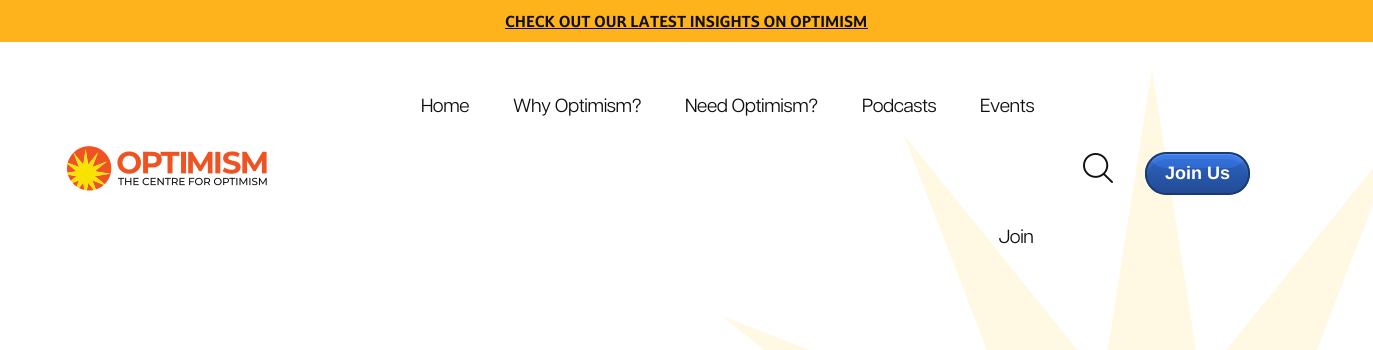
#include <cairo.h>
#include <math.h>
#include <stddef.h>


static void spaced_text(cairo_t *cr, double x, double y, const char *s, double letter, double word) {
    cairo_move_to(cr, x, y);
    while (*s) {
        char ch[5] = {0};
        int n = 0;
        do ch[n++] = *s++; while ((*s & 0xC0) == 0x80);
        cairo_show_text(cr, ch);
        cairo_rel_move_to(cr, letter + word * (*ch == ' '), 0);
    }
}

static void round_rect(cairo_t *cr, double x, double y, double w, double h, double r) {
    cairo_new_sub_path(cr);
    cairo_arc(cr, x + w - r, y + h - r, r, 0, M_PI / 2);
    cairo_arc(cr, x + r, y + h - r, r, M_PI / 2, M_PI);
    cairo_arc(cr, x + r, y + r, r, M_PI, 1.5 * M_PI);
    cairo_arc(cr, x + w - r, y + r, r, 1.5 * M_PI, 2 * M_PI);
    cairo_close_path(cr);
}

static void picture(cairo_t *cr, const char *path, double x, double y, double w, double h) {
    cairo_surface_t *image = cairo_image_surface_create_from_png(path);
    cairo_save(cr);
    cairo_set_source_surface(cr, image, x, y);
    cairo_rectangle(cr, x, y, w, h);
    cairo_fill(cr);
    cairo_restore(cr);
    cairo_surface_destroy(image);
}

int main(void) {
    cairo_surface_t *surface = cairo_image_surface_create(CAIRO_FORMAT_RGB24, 1373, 350);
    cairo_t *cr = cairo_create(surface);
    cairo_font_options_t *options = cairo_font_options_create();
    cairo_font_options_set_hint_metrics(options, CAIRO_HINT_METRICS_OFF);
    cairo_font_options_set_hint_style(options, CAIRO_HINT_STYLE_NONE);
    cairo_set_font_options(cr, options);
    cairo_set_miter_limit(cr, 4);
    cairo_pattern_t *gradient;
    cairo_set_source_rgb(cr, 1, 1, 1);
    cairo_paint(cr);
    cairo_set_source_rgb(cr, 0.996, 0.702, 0.114);
    cairo_rectangle(cr, 0, 0, 1373, 42);
    cairo_fill(cr);
    cairo_select_font_face(cr, "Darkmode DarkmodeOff", CAIRO_FONT_SLANT_NORMAL, CAIRO_FONT_WEIGHT_BOLD);
    cairo_set_font_size(cr, 15);
    cairo_set_source_rgb(cr, 0.059, 0.059, 0.059);
    cairo_move_to(cr, 505, 27);
    cairo_show_text(cr, "CHECK OUT OUR LATEST INSIGHTS ON OPTIMISM");
    cairo_rectangle(cr, 505, 28, 363, 1);
    cairo_fill(cr);
    picture(cr, "img1.png", 67, 146, 200, 45);
    cairo_select_font_face(cr, "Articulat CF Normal", CAIRO_FONT_SLANT_NORMAL, CAIRO_FONT_WEIGHT_NORMAL);
    cairo_set_font_size(cr, 19);
    spaced_text(cr, 421, 112, "Home", -0.4, 0);
    spaced_text(cr, 513, 112, "Why Optimism?", -0.4, 0);
    picture(cr, "img3.png", 723, 69, 650, 281);
    spaced_text(cr, 685, 112, "Need Optimism?", -0.4, 0);
    spaced_text(cr, 862, 112, "Podcasts", -0.4, 0);
    spaced_text(cr, 980, 112, "Events", -0.4, 0);
    spaced_text(cr, 998, 243, "Join", -0.4, 0);
    picture(cr, "img2.png", 1083, 153, 30, 30);
    cairo_save(cr);
    round_rect(cr, 1145, 152, 105, 43, 21.5);
    cairo_clip(cr);
    gradient = cairo_pattern_create_linear(1198, 154, 1198, 193);
    cairo_pattern_add_color_stop_rgba(gradient, 0, 0.208, 0.455, 0.89, 1);
    cairo_pattern_add_color_stop_rgba(gradient, 1, 0.153, 0.341, 0.667, 1);
    cairo_set_source(cr, gradient);
    cairo_pattern_destroy(gradient);
    cairo_rectangle(cr, 1145, 154, 105, 39);
    cairo_fill(cr);
    cairo_restore(cr);
    cairo_set_source_rgb(cr, 0.259, 0.569, 1);
    cairo_new_path(cr);
    cairo_move_to(cr, 1166, 155);
    cairo_line_to(cr, 1228, 155);
    cairo_curve_to(cr, 1239, 155, 1248, 164, 1248, 174);
    cairo_curve_to(cr, 1248, 165, 1241, 156, 1232, 154);
    cairo_line_to(cr, 1218, 154);
    cairo_line_to(cr, 1163, 154);
    cairo_curve_to(cr, 1154, 156, 1147, 165, 1147, 174);
    cairo_curve_to(cr, 1147, 164, 1156, 155, 1166, 155);
    cairo_close_path(cr);
    cairo_fill(cr);
    cairo_set_source_rgba(cr, 0, 0, 0, 0.13);
    cairo_new_path(cr);
    cairo_move_to(cr, 1152, 161);
    cairo_curve_to(cr, 1149, 164, 1147, 169, 1147, 174);
    cairo_curve_to(cr, 1147, 184, 1156, 193, 1166, 193);
    cairo_line_to(cr, 1228, 193);
    cairo_curve_to(cr, 1239, 193, 1248, 184, 1248, 174);
    cairo_curve_to(cr, 1248, 169, 1246, 164, 1243, 161);
    cairo_curve_to(cr, 1240, 165, 1234, 168, 1228, 168);
    cairo_line_to(cr, 1166, 168);
    cairo_curve_to(cr, 1160, 168, 1155, 165, 1152, 161);
    cairo_close_path(cr);
    cairo_fill(cr);
    cairo_set_source_rgba(cr, 1, 1, 1, 0.06);
    cairo_new_path(cr);
    cairo_move_to(cr, 1166, 159);
    cairo_line_to(cr, 1228, 159);
    cairo_curve_to(cr, 1238, 159, 1247, 167, 1248, 176);
    cairo_curve_to(cr, 1249, 166, 1242, 156, 1232, 154);
    cairo_line_to(cr, 1218, 154);
    cairo_line_to(cr, 1163, 154);
    cairo_curve_to(cr, 1153, 156, 1146, 166, 1147, 176);
    cairo_curve_to(cr, 1148, 167, 1157, 159, 1166, 159);
    cairo_close_path(cr);
    cairo_fill(cr);
    round_rect(cr, 1146, 153, 103, 41, 20.5);
    cairo_set_source_rgb(cr, 0.102, 0.227, 0.443);
    cairo_stroke(cr);
    cairo_select_font_face(cr, "Liberation Sans", CAIRO_FONT_SLANT_NORMAL, CAIRO_FONT_WEIGHT_BOLD);
    cairo_set_font_size(cr, 18);
    cairo_set_source_rgb(cr, 1, 1, 1);
    cairo_move_to(cr, 1165, 179);
    cairo_show_text(cr, "Join Us");
    cairo_surface_write_to_png(surface, "page.png");
    cairo_font_options_destroy(options);
    cairo_destroy(cr);
    cairo_surface_destroy(surface);
    return 0;
}
